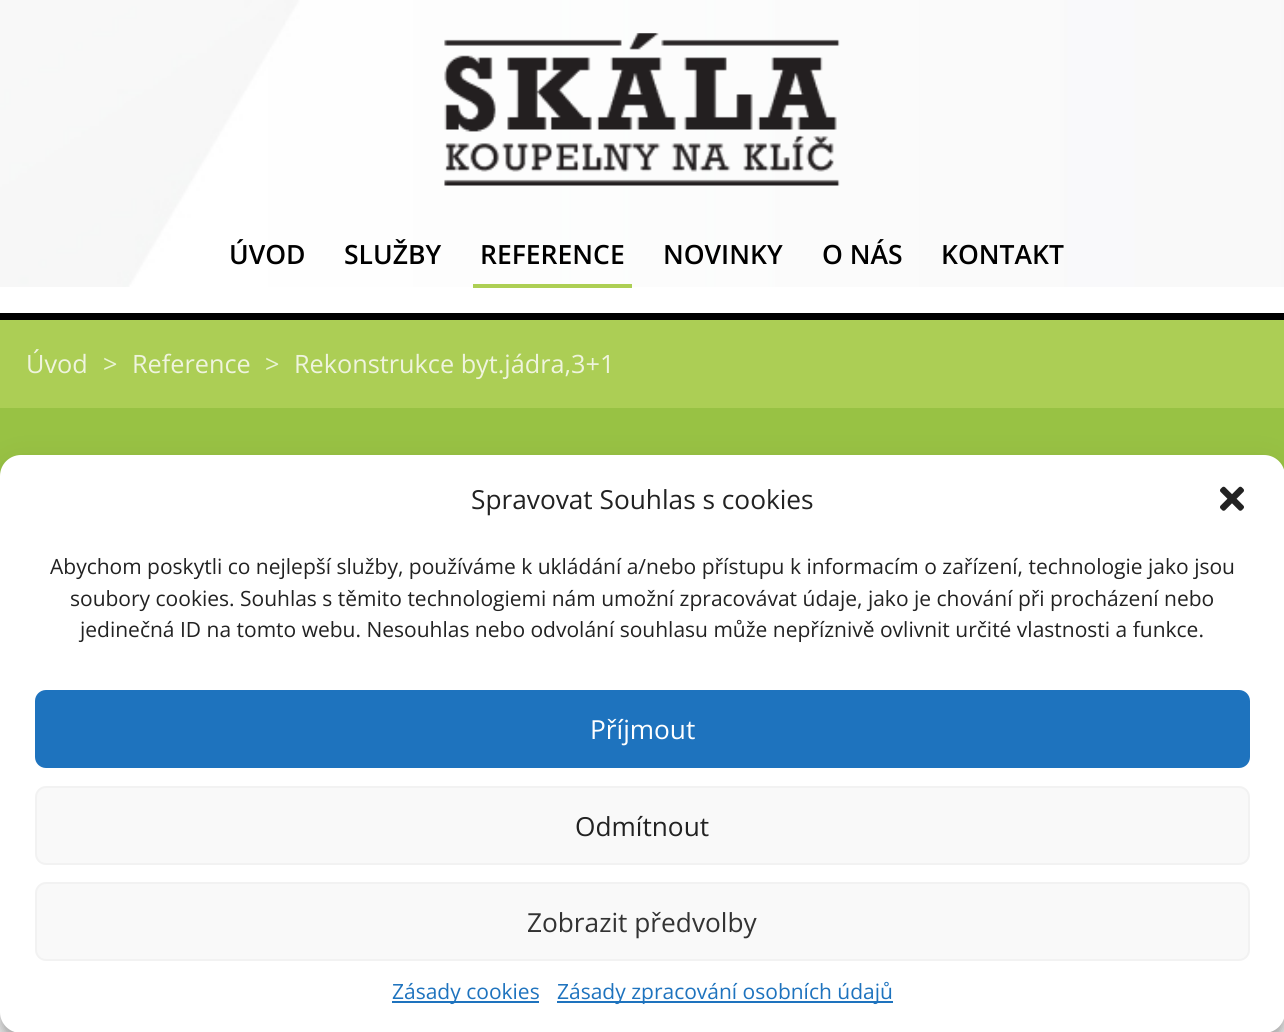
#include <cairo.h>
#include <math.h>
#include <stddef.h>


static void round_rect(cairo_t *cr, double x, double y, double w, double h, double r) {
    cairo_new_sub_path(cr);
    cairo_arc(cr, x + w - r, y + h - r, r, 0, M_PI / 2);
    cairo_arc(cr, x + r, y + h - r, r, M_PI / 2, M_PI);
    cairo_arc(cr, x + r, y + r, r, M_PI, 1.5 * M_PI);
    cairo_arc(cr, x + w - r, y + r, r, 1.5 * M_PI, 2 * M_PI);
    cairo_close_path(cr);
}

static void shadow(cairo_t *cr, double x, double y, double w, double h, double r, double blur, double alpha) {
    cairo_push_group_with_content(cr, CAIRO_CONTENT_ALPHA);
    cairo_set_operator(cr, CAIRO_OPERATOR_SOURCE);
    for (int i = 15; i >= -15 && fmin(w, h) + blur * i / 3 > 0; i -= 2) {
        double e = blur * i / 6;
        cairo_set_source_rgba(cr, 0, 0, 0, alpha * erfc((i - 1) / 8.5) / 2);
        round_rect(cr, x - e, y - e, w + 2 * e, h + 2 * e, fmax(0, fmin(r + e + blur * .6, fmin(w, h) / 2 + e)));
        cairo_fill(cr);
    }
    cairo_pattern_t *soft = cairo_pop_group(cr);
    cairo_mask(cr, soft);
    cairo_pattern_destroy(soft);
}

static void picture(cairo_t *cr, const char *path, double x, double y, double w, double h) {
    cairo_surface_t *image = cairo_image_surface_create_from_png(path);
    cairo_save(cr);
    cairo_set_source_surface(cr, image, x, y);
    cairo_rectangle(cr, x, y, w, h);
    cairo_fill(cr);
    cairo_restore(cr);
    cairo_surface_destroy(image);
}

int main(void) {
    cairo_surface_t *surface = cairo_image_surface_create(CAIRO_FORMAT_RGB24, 1284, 1032);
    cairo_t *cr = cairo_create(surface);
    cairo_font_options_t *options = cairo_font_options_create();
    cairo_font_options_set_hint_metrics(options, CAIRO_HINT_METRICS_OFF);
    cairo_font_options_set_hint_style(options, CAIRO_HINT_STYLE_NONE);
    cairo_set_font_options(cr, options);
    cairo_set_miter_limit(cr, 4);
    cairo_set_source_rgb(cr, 1, 1, 1);
    cairo_paint(cr);
    picture(cr, "img1.png", 0, 0, 1284, 287);
    picture(cr, "img2.png", 444, 33, 396, 153);
    cairo_select_font_face(cr, "Open Sans SemiBold", CAIRO_FONT_SLANT_NORMAL, CAIRO_FONT_WEIGHT_NORMAL);
    cairo_set_font_size(cr, 26.5);
    cairo_set_source_rgb(cr, 0, 0, 0);
    cairo_move_to(cr, 229, 264);
    cairo_show_text(cr, "ÚVOD");
    cairo_move_to(cr, 344, 264);
    cairo_show_text(cr, "SLUŽBY");
    cairo_move_to(cr, 480, 264);
    cairo_show_text(cr, "REFERENCE");
    cairo_set_source_rgb(cr, 0.678, 0.812, 0.329);
    cairo_rectangle(cr, 473, 284, 159, 4);
    cairo_fill(cr);
    cairo_set_source_rgb(cr, 0, 0, 0);
    cairo_move_to(cr, 663, 264);
    cairo_show_text(cr, "NOVINKY");
    cairo_move_to(cr, 822, 264);
    cairo_show_text(cr, "O NÁS");
    cairo_move_to(cr, 941, 264);
    cairo_show_text(cr, "KONTAKT");
    cairo_rectangle(cr, 0, 313, 1284, 7);
    cairo_fill(cr);
    cairo_set_source_rgb(cr, 0.675, 0.808, 0.333);
    cairo_rectangle(cr, 0, 320, 1284, 88);
    cairo_fill(cr);
    cairo_select_font_face(cr, "Open Sans", CAIRO_FONT_SLANT_NORMAL, CAIRO_FONT_WEIGHT_NORMAL);
    cairo_set_font_size(cr, 25.25);
    cairo_set_source_rgb(cr, 0.937, 0.957, 0.871);
    cairo_move_to(cr, 26, 373);
    cairo_show_text(cr, "Úvod");
    cairo_set_source_rgb(cr, 0.914, 0.957, 0.831);
    cairo_move_to(cr, 103, 373);
    cairo_show_text(cr, ">");
    cairo_set_source_rgb(cr, 0.937, 0.957, 0.871);
    cairo_move_to(cr, 132, 373);
    cairo_show_text(cr, "Reference");
    cairo_set_source_rgb(cr, 0.914, 0.957, 0.831);
    cairo_move_to(cr, 265, 373);
    cairo_show_text(cr, ">");
    cairo_set_source_rgb(cr, 0.937, 0.957, 0.871);
    cairo_move_to(cr, 294, 373);
    cairo_show_text(cr, "Rekonstrukce byt.jádra,3+1");
    cairo_set_source_rgb(cr, 0.596, 0.761, 0.267);
    cairo_rectangle(cr, 0, 408, 1284, 68);
    cairo_fill(cr);
    cairo_set_source_rgb(cr, 0, 0, 0);
    shadow(cr, 0, 466, 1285, 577, 21, 5, 0.23);
    shadow(cr, 0, 473, 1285, 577, 21, 17.5, 0.19);
    cairo_set_source_rgb(cr, 1, 1, 1);
    round_rect(cr, 0, 455, 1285, 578, 21);
    cairo_fill(cr);
    cairo_set_font_size(cr, 26.25);
    cairo_set_source_rgb(cr, 0.133, 0.133, 0.133);
    cairo_move_to(cr, 471, 509);
    cairo_show_text(cr, "Spravovat Souhlas s cookies");
    picture(cr, "img3.png", 1220, 486, 24, 25);
    cairo_set_font_size(cr, 21);
    cairo_move_to(cr, 50, 574);
    cairo_show_text(cr, "Abychom poskytli co nejlepší služby, používáme k ukládání a/nebo přístupu k informacím o zařízení, technologie jako jsou");
    cairo_move_to(cr, 70, 606);
    cairo_show_text(cr, "soubory cookies. Souhlas s těmito technologiemi nám umožní zpracovávat údaje, jako je chování při procházení nebo");
    cairo_move_to(cr, 80, 637);
    cairo_show_text(cr, "jedinečná ID na tomto webu. Nesouhlas nebo odvolání souhlasu může nepříznivě ovlivnit určité vlastnosti a funkce.");
    cairo_set_source_rgb(cr, 0.118, 0.451, 0.745);
    round_rect(cr, 36, 691, 1213, 76, 10);
    cairo_fill_preserve(cr);
    cairo_stroke(cr);
    cairo_set_font_size(cr, 26.25);
    cairo_set_source_rgb(cr, 1, 1, 1);
    cairo_move_to(cr, 590, 739);
    cairo_show_text(cr, "Příjmout");
    cairo_set_source_rgb(cr, 0.976, 0.976, 0.976);
    round_rect(cr, 36, 787, 1213, 77, 10);
    cairo_fill_preserve(cr);
    cairo_set_source_rgb(cr, 0.949, 0.949, 0.949);
    cairo_stroke(cr);
    cairo_set_source_rgb(cr, 0.133, 0.133, 0.133);
    cairo_move_to(cr, 575, 836);
    cairo_show_text(cr, "Odmítnout");
    cairo_set_source_rgb(cr, 0.976, 0.976, 0.976);
    round_rect(cr, 36, 883, 1213, 77, 10);
    cairo_fill_preserve(cr);
    cairo_set_source_rgb(cr, 0.949, 0.949, 0.949);
    cairo_stroke(cr);
    cairo_set_source_rgb(cr, 0.2, 0.2, 0.2);
    cairo_move_to(cr, 527, 932);
    cairo_show_text(cr, "Zobrazit předvolby");
    cairo_set_source_rgb(cr, 0.118, 0.451, 0.745);
    cairo_rectangle(cr, 392, 1001, 147, 2);
    cairo_fill(cr);
    cairo_set_font_size(cr, 21);
    cairo_move_to(cr, 392, 999);
    cairo_show_text(cr, "Zásady cookies");
    cairo_rectangle(cr, 557, 1001, 336, 2);
    cairo_fill(cr);
    cairo_move_to(cr, 557, 999);
    cairo_show_text(cr, "Zásady zpracování osobních údajů");
    cairo_surface_write_to_png(surface, "page.png");
    cairo_font_options_destroy(options);
    cairo_destroy(cr);
    cairo_surface_destroy(surface);
    return 0;
}
